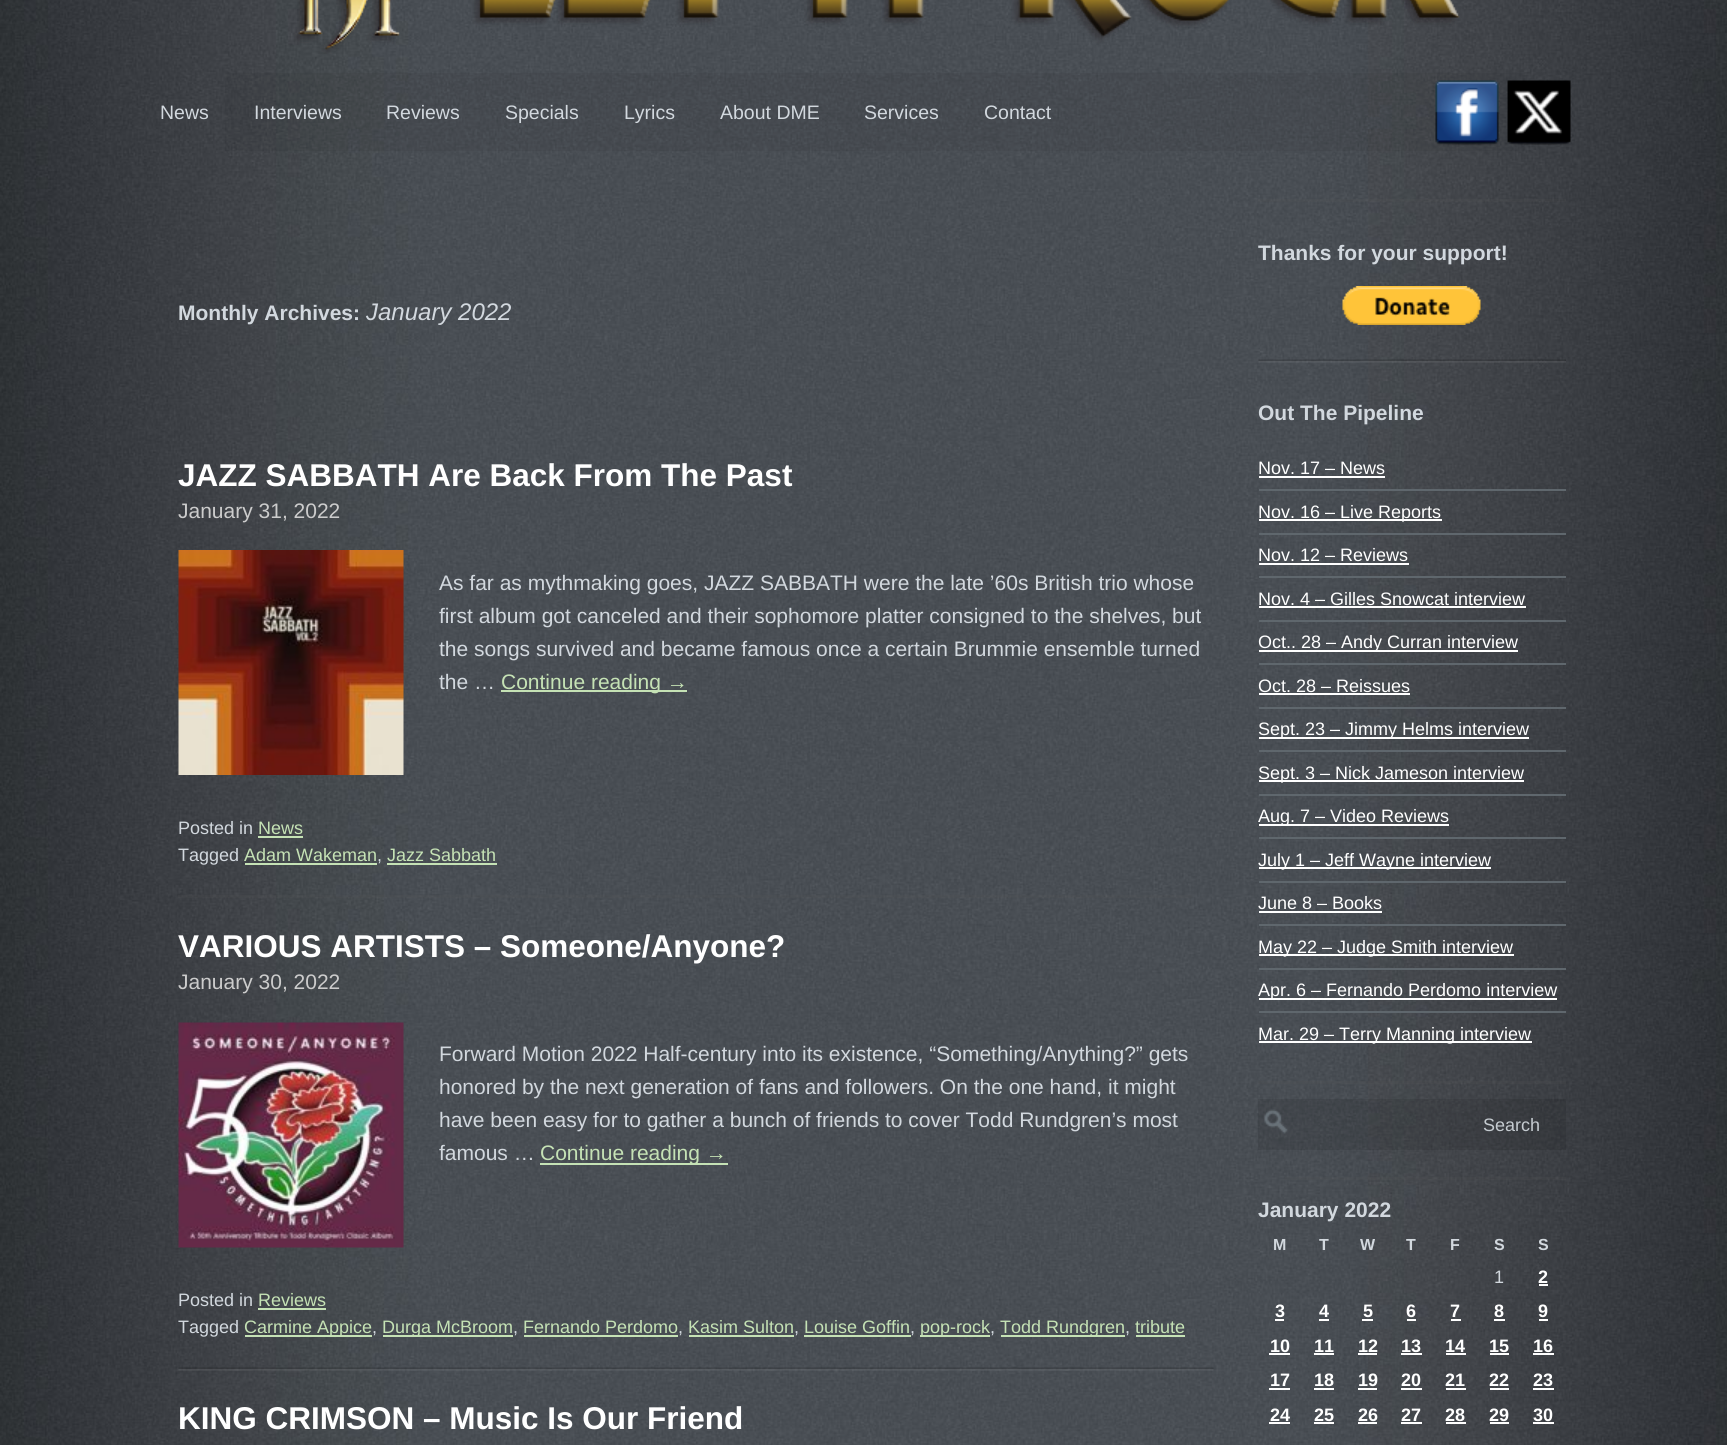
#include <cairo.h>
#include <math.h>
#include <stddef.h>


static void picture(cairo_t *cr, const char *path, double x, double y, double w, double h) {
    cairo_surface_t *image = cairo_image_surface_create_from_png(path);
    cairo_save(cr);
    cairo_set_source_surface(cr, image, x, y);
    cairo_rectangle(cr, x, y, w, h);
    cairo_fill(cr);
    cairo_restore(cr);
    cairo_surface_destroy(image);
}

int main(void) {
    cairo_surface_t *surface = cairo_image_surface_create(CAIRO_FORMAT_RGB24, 1727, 1445);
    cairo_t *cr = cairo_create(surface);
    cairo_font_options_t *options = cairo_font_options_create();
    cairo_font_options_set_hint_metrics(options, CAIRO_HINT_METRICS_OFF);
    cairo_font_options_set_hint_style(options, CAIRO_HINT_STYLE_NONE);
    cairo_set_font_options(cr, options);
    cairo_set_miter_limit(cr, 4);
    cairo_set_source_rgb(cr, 1, 1, 1);
    cairo_paint(cr);
    picture(cr, "img1.png", 0, 0, 1727, 1445);
    picture(cr, "img2.png", 294, 0, 1166, 54);
    cairo_set_source_rgba(cr, 0, 0, 0, 0.05);
    cairo_rectangle(cr, 225, 73, 1300, 78);
    cairo_fill(cr);
    cairo_select_font_face(cr, "Liberation Sans", CAIRO_FONT_SLANT_NORMAL, CAIRO_FONT_WEIGHT_NORMAL);
    cairo_set_font_size(cr, 19.5);
    cairo_set_source_rgb(cr, 0.824, 0.847, 0.871);
    cairo_move_to(cr, 160, 119);
    cairo_show_text(cr, "News");
    cairo_move_to(cr, 254, 119);
    cairo_show_text(cr, "Interviews");
    cairo_move_to(cr, 386, 119);
    cairo_show_text(cr, "Reviews");
    cairo_move_to(cr, 505, 119);
    cairo_show_text(cr, "Specials");
    cairo_move_to(cr, 624, 119);
    cairo_show_text(cr, "Lyrics");
    cairo_move_to(cr, 720, 119);
    cairo_show_text(cr, "About DME");
    cairo_move_to(cr, 864, 119);
    cairo_show_text(cr, "Services");
    cairo_move_to(cr, 984, 119);
    cairo_show_text(cr, "Contact");
    picture(cr, "img3.png", 1435, 80, 64, 66);
    picture(cr, "img4.png", 1507, 80, 64, 65);
    cairo_select_font_face(cr, "Liberation Sans", CAIRO_FONT_SLANT_NORMAL, CAIRO_FONT_WEIGHT_BOLD);
    cairo_set_font_size(cr, 21);
    cairo_move_to(cr, 178, 320);
    cairo_show_text(cr, "Monthly Archives:");
    cairo_select_font_face(cr, "Liberation Sans", CAIRO_FONT_SLANT_ITALIC, CAIRO_FONT_WEIGHT_NORMAL);
    cairo_set_font_size(cr, 24);
    cairo_move_to(cr, 366, 320);
    cairo_show_text(cr, "January 2022");
    cairo_select_font_face(cr, "Liberation Sans", CAIRO_FONT_SLANT_NORMAL, CAIRO_FONT_WEIGHT_BOLD);
    cairo_set_font_size(cr, 31.5);
    cairo_set_source_rgb(cr, 1, 1, 1);
    cairo_move_to(cr, 178, 486);
    cairo_show_text(cr, "JAZZ SABBATH Are Back From The Past");
    cairo_select_font_face(cr, "Liberation Sans", CAIRO_FONT_SLANT_NORMAL, CAIRO_FONT_WEIGHT_NORMAL);
    cairo_set_font_size(cr, 21);
    cairo_set_source_rgb(cr, 0.8, 0.8, 0.8);
    cairo_move_to(cr, 178, 518);
    cairo_show_text(cr, "January 31, 2022");
    picture(cr, "img5.png", 178, 550, 226, 225);
    cairo_set_source_rgb(cr, 0.824, 0.847, 0.871);
    cairo_move_to(cr, 439, 590);
    cairo_show_text(cr, "As far as mythmaking goes, JAZZ SABBATH were the late ’60s British trio whose");
    cairo_move_to(cr, 439, 623);
    cairo_show_text(cr, "first album got canceled and their sophomore platter consigned to the shelves, but");
    cairo_move_to(cr, 439, 656);
    cairo_show_text(cr, "the songs survived and became famous once a certain Brummie ensemble turned");
    cairo_move_to(cr, 439, 689);
    cairo_show_text(cr, "the …");
    cairo_set_source_rgb(cr, 0.773, 0.886, 0.71);
    cairo_rectangle(cr, 501, 690, 186, 2);
    cairo_fill(cr);
    cairo_move_to(cr, 501, 689);
    cairo_show_text(cr, "Continue reading →");
    cairo_set_font_size(cr, 18);
    cairo_set_source_rgb(cr, 0.824, 0.847, 0.871);
    cairo_move_to(cr, 178, 834);
    cairo_show_text(cr, "Posted in");
    cairo_set_source_rgb(cr, 0.773, 0.886, 0.71);
    cairo_move_to(cr, 258, 834);
    cairo_show_text(cr, "News");
    cairo_rectangle(cr, 258, 836, 45, 2);
    cairo_fill(cr);
    cairo_set_source_rgb(cr, 0.824, 0.847, 0.871);
    cairo_move_to(cr, 178, 861);
    cairo_show_text(cr, "Tagged");
    cairo_set_source_rgb(cr, 0.773, 0.886, 0.71);
    cairo_move_to(cr, 244, 861);
    cairo_show_text(cr, "Adam Wakeman");
    cairo_rectangle(cr, 245, 863, 132, 2);
    cairo_fill(cr);
    cairo_set_source_rgb(cr, 0.824, 0.847, 0.871);
    cairo_move_to(cr, 377, 861);
    cairo_show_text(cr, ",");
    cairo_set_source_rgb(cr, 0.773, 0.886, 0.71);
    cairo_move_to(cr, 387, 861);
    cairo_show_text(cr, "Jazz Sabbath");
    cairo_rectangle(cr, 387, 863, 110, 2);
    cairo_fill(cr);
    cairo_set_source_rgba(cr, 0.341, 0.341, 0.341, 0.15);
    cairo_rectangle(cr, 178, 895, 1014, 3);
    cairo_fill(cr);
    cairo_select_font_face(cr, "Liberation Sans", CAIRO_FONT_SLANT_NORMAL, CAIRO_FONT_WEIGHT_BOLD);
    cairo_set_font_size(cr, 31.5);
    cairo_set_source_rgb(cr, 1, 1, 1);
    cairo_move_to(cr, 178, 957);
    cairo_show_text(cr, "VARIOUS ARTISTS – Someone/Anyone?");
    cairo_select_font_face(cr, "Liberation Sans", CAIRO_FONT_SLANT_NORMAL, CAIRO_FONT_WEIGHT_NORMAL);
    cairo_set_font_size(cr, 21);
    cairo_set_source_rgb(cr, 0.8, 0.8, 0.8);
    cairo_move_to(cr, 178, 989);
    cairo_show_text(cr, "January 30, 2022");
    picture(cr, "img6.png", 178, 1022, 226, 226);
    cairo_set_source_rgb(cr, 0.824, 0.847, 0.871);
    cairo_move_to(cr, 439, 1061);
    cairo_show_text(cr, "Forward Motion 2022 Half-century into its existence, “Something/Anything?” gets");
    cairo_move_to(cr, 439, 1094);
    cairo_show_text(cr, "honored by the next generation of fans and followers. On the one hand, it might");
    cairo_move_to(cr, 439, 1127);
    cairo_show_text(cr, "have been easy for to gather a bunch of friends to cover Todd Rundgren’s most");
    cairo_move_to(cr, 439, 1160);
    cairo_show_text(cr, "famous …");
    cairo_set_source_rgb(cr, 0.773, 0.886, 0.71);
    cairo_rectangle(cr, 540, 1163, 188, 2);
    cairo_fill(cr);
    cairo_move_to(cr, 540, 1160);
    cairo_show_text(cr, "Continue reading →");
    cairo_set_font_size(cr, 18);
    cairo_set_source_rgb(cr, 0.824, 0.847, 0.871);
    cairo_move_to(cr, 178, 1306);
    cairo_show_text(cr, "Posted in");
    cairo_set_source_rgb(cr, 0.773, 0.886, 0.71);
    cairo_move_to(cr, 258, 1306);
    cairo_show_text(cr, "Reviews");
    cairo_rectangle(cr, 258, 1308, 68, 2);
    cairo_fill(cr);
    cairo_set_source_rgb(cr, 0.824, 0.847, 0.871);
    cairo_move_to(cr, 178, 1333);
    cairo_show_text(cr, "Tagged");
    cairo_set_source_rgb(cr, 0.773, 0.886, 0.71);
    cairo_rectangle(cr, 245, 1335, 127, 2);
    cairo_fill(cr);
    cairo_move_to(cr, 244, 1333);
    cairo_show_text(cr, "Carmine Appice");
    cairo_set_source_rgb(cr, 0.824, 0.847, 0.871);
    cairo_move_to(cr, 372, 1333);
    cairo_show_text(cr, ",");
    cairo_set_source_rgb(cr, 0.773, 0.886, 0.71);
    cairo_rectangle(cr, 383, 1335, 130, 2);
    cairo_fill(cr);
    cairo_move_to(cr, 382, 1333);
    cairo_show_text(cr, "Durga McBroom");
    cairo_set_source_rgb(cr, 0.824, 0.847, 0.871);
    cairo_move_to(cr, 513, 1333);
    cairo_show_text(cr, ",");
    cairo_set_source_rgb(cr, 0.773, 0.886, 0.71);
    cairo_move_to(cr, 523, 1333);
    cairo_show_text(cr, "Fernando Perdomo");
    cairo_rectangle(cr, 524, 1335, 154, 2);
    cairo_fill(cr);
    cairo_set_source_rgb(cr, 0.824, 0.847, 0.871);
    cairo_move_to(cr, 678, 1333);
    cairo_show_text(cr, ",");
    cairo_set_source_rgb(cr, 0.773, 0.886, 0.71);
    cairo_move_to(cr, 688, 1333);
    cairo_show_text(cr, "Kasim Sulton");
    cairo_rectangle(cr, 689, 1335, 105, 2);
    cairo_fill(cr);
    cairo_set_source_rgb(cr, 0.824, 0.847, 0.871);
    cairo_move_to(cr, 794, 1333);
    cairo_show_text(cr, ",");
    cairo_set_source_rgb(cr, 0.773, 0.886, 0.71);
    cairo_move_to(cr, 804, 1333);
    cairo_show_text(cr, "Louise Goffin");
    cairo_rectangle(cr, 804, 1335, 107, 2);
    cairo_fill(cr);
    cairo_set_source_rgb(cr, 0.824, 0.847, 0.871);
    cairo_move_to(cr, 910, 1333);
    cairo_show_text(cr, ",");
    cairo_set_source_rgb(cr, 0.773, 0.886, 0.71);
    cairo_rectangle(cr, 920, 1335, 70, 2);
    cairo_fill(cr);
    cairo_move_to(cr, 920, 1333);
    cairo_show_text(cr, "pop-rock");
    cairo_set_source_rgb(cr, 0.824, 0.847, 0.871);
    cairo_move_to(cr, 990, 1333);
    cairo_show_text(cr, ",");
    cairo_set_source_rgb(cr, 0.773, 0.886, 0.71);
    cairo_rectangle(cr, 1001, 1335, 124, 2);
    cairo_fill(cr);
    cairo_move_to(cr, 1000, 1333);
    cairo_show_text(cr, "Todd Rundgren");
    cairo_set_source_rgb(cr, 0.824, 0.847, 0.871);
    cairo_move_to(cr, 1125, 1333);
    cairo_show_text(cr, ",");
    cairo_set_source_rgb(cr, 0.773, 0.886, 0.71);
    cairo_move_to(cr, 1135, 1333);
    cairo_show_text(cr, "tribute");
    cairo_rectangle(cr, 1136, 1335, 49, 2);
    cairo_fill(cr);
    picture(cr, "img7.png", 178, 1367, 1036, 4);
    cairo_select_font_face(cr, "Liberation Sans", CAIRO_FONT_SLANT_NORMAL, CAIRO_FONT_WEIGHT_BOLD);
    cairo_set_font_size(cr, 31.5);
    cairo_set_source_rgb(cr, 1, 1, 1);
    cairo_move_to(cr, 178, 1429);
    cairo_show_text(cr, "KING CRIMSON – Music Is Our Friend");
    cairo_set_source_rgba(cr, 0.341, 0.341, 0.341, 0.15);
    cairo_rectangle(cr, 1258, 199, 308, 3);
    cairo_fill(cr);
    cairo_set_font_size(cr, 21);
    cairo_set_source_rgb(cr, 0.824, 0.847, 0.871);
    cairo_move_to(cr, 1258, 260);
    cairo_show_text(cr, "Thanks for your support!");
    picture(cr, "img8.png", 1342, 286, 139, 39);
    picture(cr, "img9.png", 1258, 359, 308, 4);
    cairo_move_to(cr, 1258, 420);
    cairo_show_text(cr, "Out The Pipeline");
    cairo_select_font_face(cr, "Liberation Sans", CAIRO_FONT_SLANT_NORMAL, CAIRO_FONT_WEIGHT_NORMAL);
    cairo_set_font_size(cr, 18);
    cairo_set_source_rgb(cr, 1, 1, 1);
    cairo_move_to(cr, 1258, 474);
    cairo_show_text(cr, "Nov. 17 – News");
    cairo_rectangle(cr, 1259, 476, 126, 2);
    cairo_fill(cr);
    cairo_set_source_rgb(cr, 0.373, 0.404, 0.427);
    cairo_rectangle(cr, 1259, 489, 307, 2);
    cairo_fill(cr);
    cairo_set_source_rgb(cr, 1, 1, 1);
    cairo_rectangle(cr, 1259, 519, 183, 2);
    cairo_fill(cr);
    cairo_move_to(cr, 1258, 518);
    cairo_show_text(cr, "Nov. 16 – Live Reports");
    cairo_set_source_rgb(cr, 0.373, 0.404, 0.427);
    cairo_rectangle(cr, 1259, 533, 307, 2);
    cairo_fill(cr);
    cairo_set_source_rgb(cr, 1, 1, 1);
    cairo_move_to(cr, 1258, 561);
    cairo_show_text(cr, "Nov. 12 – Reviews");
    cairo_rectangle(cr, 1259, 563, 150, 2);
    cairo_fill(cr);
    cairo_set_source_rgb(cr, 0.373, 0.404, 0.427);
    cairo_rectangle(cr, 1259, 576, 307, 2);
    cairo_fill(cr);
    cairo_set_source_rgb(cr, 1, 1, 1);
    cairo_move_to(cr, 1258, 605);
    cairo_show_text(cr, "Nov. 4 – Gilles Snowcat interview");
    cairo_rectangle(cr, 1259, 606, 267, 2);
    cairo_fill(cr);
    cairo_set_source_rgb(cr, 0.373, 0.404, 0.427);
    cairo_rectangle(cr, 1259, 620, 307, 2);
    cairo_fill(cr);
    cairo_set_source_rgb(cr, 1, 1, 1);
    cairo_rectangle(cr, 1259, 650, 259, 2);
    cairo_fill(cr);
    cairo_move_to(cr, 1258, 648);
    cairo_show_text(cr, "Oct.. 28 – Andy Curran interview");
    cairo_set_source_rgb(cr, 0.373, 0.404, 0.427);
    cairo_rectangle(cr, 1259, 663, 307, 2);
    cairo_fill(cr);
    cairo_set_source_rgb(cr, 1, 1, 1);
    cairo_move_to(cr, 1258, 692);
    cairo_show_text(cr, "Oct. 28 – Reissues");
    cairo_rectangle(cr, 1259, 693, 151, 2);
    cairo_fill(cr);
    cairo_set_source_rgb(cr, 0.373, 0.404, 0.427);
    cairo_rectangle(cr, 1259, 707, 307, 2);
    cairo_fill(cr);
    cairo_set_source_rgb(cr, 1, 1, 1);
    cairo_rectangle(cr, 1259, 737, 270, 2);
    cairo_fill(cr);
    cairo_move_to(cr, 1258, 735);
    cairo_show_text(cr, "Sept. 23 – Jimmy Helms interview");
    cairo_set_source_rgb(cr, 0.373, 0.404, 0.427);
    cairo_rectangle(cr, 1259, 750, 307, 2);
    cairo_fill(cr);
    cairo_set_source_rgb(cr, 1, 1, 1);
    cairo_rectangle(cr, 1259, 780, 265, 2);
    cairo_fill(cr);
    cairo_move_to(cr, 1258, 779);
    cairo_show_text(cr, "Sept. 3 – Nick Jameson interview");
    cairo_set_source_rgb(cr, 0.373, 0.404, 0.427);
    cairo_rectangle(cr, 1259, 794, 307, 2);
    cairo_fill(cr);
    cairo_set_source_rgb(cr, 1, 1, 1);
    cairo_rectangle(cr, 1259, 824, 190, 2);
    cairo_fill(cr);
    cairo_move_to(cr, 1258, 822);
    cairo_show_text(cr, "Aug. 7 – Video Reviews");
    cairo_set_source_rgb(cr, 0.373, 0.404, 0.427);
    cairo_rectangle(cr, 1259, 837, 307, 2);
    cairo_fill(cr);
    cairo_set_source_rgb(cr, 1, 1, 1);
    cairo_rectangle(cr, 1259, 867, 232, 2);
    cairo_fill(cr);
    cairo_move_to(cr, 1258, 866);
    cairo_show_text(cr, "July 1 – Jeff Wayne interview");
    cairo_set_source_rgb(cr, 0.373, 0.404, 0.427);
    cairo_rectangle(cr, 1259, 881, 307, 2);
    cairo_fill(cr);
    cairo_set_source_rgb(cr, 1, 1, 1);
    cairo_move_to(cr, 1258, 909);
    cairo_show_text(cr, "June 8 – Books");
    cairo_rectangle(cr, 1259, 911, 123, 2);
    cairo_fill(cr);
    cairo_set_source_rgb(cr, 0.373, 0.404, 0.427);
    cairo_rectangle(cr, 1259, 924, 307, 2);
    cairo_fill(cr);
    cairo_set_source_rgb(cr, 1, 1, 1);
    cairo_rectangle(cr, 1259, 954, 255, 2);
    cairo_fill(cr);
    cairo_move_to(cr, 1258, 953);
    cairo_show_text(cr, "May 22 – Judge Smith interview");
    cairo_set_source_rgb(cr, 0.373, 0.404, 0.427);
    cairo_rectangle(cr, 1259, 968, 307, 2);
    cairo_fill(cr);
    cairo_set_source_rgb(cr, 1, 1, 1);
    cairo_rectangle(cr, 1259, 998, 298, 2);
    cairo_fill(cr);
    cairo_move_to(cr, 1258, 996);
    cairo_show_text(cr, "Apr. 6 – Fernando Perdomo interview");
    cairo_set_source_rgb(cr, 0.373, 0.404, 0.427);
    cairo_rectangle(cr, 1259, 1011, 307, 2);
    cairo_fill(cr);
    cairo_set_source_rgb(cr, 1, 1, 1);
    cairo_rectangle(cr, 1259, 1041, 273, 2);
    cairo_fill(cr);
    cairo_move_to(cr, 1258, 1040);
    cairo_show_text(cr, "Mar. 29 – Terry Manning interview");
    cairo_set_source_rgba(cr, 0.341, 0.341, 0.341, 0.15);
    cairo_rectangle(cr, 1258, 1081, 308, 3);
    cairo_fill(cr);
    cairo_set_source_rgba(cr, 0, 0, 0, 0.1);
    cairo_rectangle(cr, 1258, 1099, 308, 51);
    cairo_fill(cr);
    picture(cr, "img10.png", 1264, 1109, 24, 25);
    cairo_set_source_rgb(cr, 0.773, 0.796, 0.816);
    cairo_move_to(cr, 1483, 1131);
    cairo_show_text(cr, "Search");
    cairo_set_source_rgba(cr, 0.341, 0.341, 0.341, 0.15);
    cairo_rectangle(cr, 1285, 1177, 281, 3);
    cairo_fill(cr);
    cairo_select_font_face(cr, "Liberation Sans", CAIRO_FONT_SLANT_NORMAL, CAIRO_FONT_WEIGHT_BOLD);
    cairo_set_font_size(cr, 21);
    cairo_set_source_rgb(cr, 0.824, 0.847, 0.871);
    cairo_move_to(cr, 1258, 1217);
    cairo_show_text(cr, "January 2022");
    cairo_set_font_size(cr, 16);
    cairo_move_to(cr, 1273, 1250);
    cairo_show_text(cr, "M");
    cairo_move_to(cr, 1319, 1250);
    cairo_show_text(cr, "T");
    cairo_move_to(cr, 1360, 1250);
    cairo_show_text(cr, "W");
    cairo_move_to(cr, 1406, 1250);
    cairo_show_text(cr, "T");
    cairo_move_to(cr, 1450, 1250);
    cairo_show_text(cr, "F");
    cairo_move_to(cr, 1494, 1250);
    cairo_show_text(cr, "S");
    cairo_move_to(cr, 1538, 1250);
    cairo_show_text(cr, "S");
    cairo_select_font_face(cr, "Liberation Sans", CAIRO_FONT_SLANT_NORMAL, CAIRO_FONT_WEIGHT_NORMAL);
    cairo_set_font_size(cr, 18);
    cairo_move_to(cr, 1494, 1283);
    cairo_show_text(cr, "1");
    cairo_select_font_face(cr, "Liberation Sans", CAIRO_FONT_SLANT_NORMAL, CAIRO_FONT_WEIGHT_BOLD);
    cairo_set_source_rgb(cr, 1, 1, 1);
    cairo_move_to(cr, 1538, 1283);
    cairo_show_text(cr, "2");
    cairo_rectangle(cr, 1539, 1284, 9, 2);
    cairo_fill(cr);
    cairo_move_to(cr, 1275, 1317);
    cairo_show_text(cr, "3");
    cairo_rectangle(cr, 1275, 1319, 9, 2);
    cairo_fill(cr);
    cairo_move_to(cr, 1319, 1317);
    cairo_show_text(cr, "4");
    cairo_rectangle(cr, 1319, 1319, 10, 2);
    cairo_fill(cr);
    cairo_move_to(cr, 1363, 1317);
    cairo_show_text(cr, "5");
    cairo_rectangle(cr, 1362, 1319, 11, 2);
    cairo_fill(cr);
    cairo_move_to(cr, 1406, 1317);
    cairo_show_text(cr, "6");
    cairo_rectangle(cr, 1407, 1319, 9, 2);
    cairo_fill(cr);
    cairo_move_to(cr, 1450, 1317);
    cairo_show_text(cr, "7");
    cairo_rectangle(cr, 1451, 1319, 10, 2);
    cairo_fill(cr);
    cairo_move_to(cr, 1494, 1317);
    cairo_show_text(cr, "8");
    cairo_rectangle(cr, 1494, 1319, 11, 2);
    cairo_fill(cr);
    cairo_move_to(cr, 1538, 1317);
    cairo_show_text(cr, "9");
    cairo_rectangle(cr, 1539, 1319, 9, 2);
    cairo_fill(cr);
    cairo_move_to(cr, 1270, 1352);
    cairo_show_text(cr, "10");
    cairo_rectangle(cr, 1269, 1353, 21, 2);
    cairo_fill(cr);
    cairo_move_to(cr, 1314, 1352);
    cairo_show_text(cr, "11");
    cairo_rectangle(cr, 1314, 1353, 20, 2);
    cairo_fill(cr);
    cairo_move_to(cr, 1358, 1352);
    cairo_show_text(cr, "12");
    cairo_rectangle(cr, 1358, 1353, 19, 2);
    cairo_fill(cr);
    cairo_move_to(cr, 1401, 1352);
    cairo_show_text(cr, "13");
    cairo_rectangle(cr, 1401, 1353, 21, 2);
    cairo_fill(cr);
    cairo_move_to(cr, 1445, 1352);
    cairo_show_text(cr, "14");
    cairo_rectangle(cr, 1446, 1353, 20, 2);
    cairo_fill(cr);
    cairo_move_to(cr, 1489, 1352);
    cairo_show_text(cr, "15");
    cairo_rectangle(cr, 1490, 1353, 19, 2);
    cairo_fill(cr);
    cairo_move_to(cr, 1533, 1352);
    cairo_show_text(cr, "16");
    cairo_rectangle(cr, 1533, 1353, 21, 2);
    cairo_fill(cr);
    cairo_move_to(cr, 1270, 1386);
    cairo_show_text(cr, "17");
    cairo_rectangle(cr, 1269, 1388, 21, 2);
    cairo_fill(cr);
    cairo_move_to(cr, 1314, 1386);
    cairo_show_text(cr, "18");
    cairo_rectangle(cr, 1314, 1388, 20, 2);
    cairo_fill(cr);
    cairo_move_to(cr, 1358, 1386);
    cairo_show_text(cr, "19");
    cairo_rectangle(cr, 1358, 1388, 19, 2);
    cairo_fill(cr);
    cairo_move_to(cr, 1401, 1386);
    cairo_show_text(cr, "20");
    cairo_rectangle(cr, 1401, 1388, 21, 2);
    cairo_fill(cr);
    cairo_move_to(cr, 1445, 1386);
    cairo_show_text(cr, "21");
    cairo_rectangle(cr, 1446, 1388, 20, 2);
    cairo_fill(cr);
    cairo_move_to(cr, 1489, 1386);
    cairo_show_text(cr, "22");
    cairo_rectangle(cr, 1490, 1388, 19, 2);
    cairo_fill(cr);
    cairo_move_to(cr, 1533, 1386);
    cairo_show_text(cr, "23");
    cairo_rectangle(cr, 1533, 1388, 21, 2);
    cairo_fill(cr);
    cairo_move_to(cr, 1270, 1421);
    cairo_show_text(cr, "24");
    cairo_rectangle(cr, 1269, 1422, 21, 2);
    cairo_fill(cr);
    cairo_move_to(cr, 1314, 1421);
    cairo_show_text(cr, "25");
    cairo_rectangle(cr, 1314, 1422, 20, 2);
    cairo_fill(cr);
    cairo_move_to(cr, 1358, 1421);
    cairo_show_text(cr, "26");
    cairo_rectangle(cr, 1358, 1422, 19, 2);
    cairo_fill(cr);
    cairo_move_to(cr, 1401, 1421);
    cairo_show_text(cr, "27");
    cairo_rectangle(cr, 1401, 1422, 21, 2);
    cairo_fill(cr);
    cairo_move_to(cr, 1445, 1421);
    cairo_show_text(cr, "28");
    cairo_rectangle(cr, 1446, 1422, 20, 2);
    cairo_fill(cr);
    cairo_move_to(cr, 1489, 1421);
    cairo_show_text(cr, "29");
    cairo_rectangle(cr, 1490, 1422, 19, 2);
    cairo_fill(cr);
    cairo_move_to(cr, 1533, 1421);
    cairo_show_text(cr, "30");
    cairo_rectangle(cr, 1533, 1422, 21, 2);
    cairo_fill(cr);
    cairo_surface_write_to_png(surface, "page.png");
    cairo_font_options_destroy(options);
    cairo_destroy(cr);
    cairo_surface_destroy(surface);
    return 0;
}
